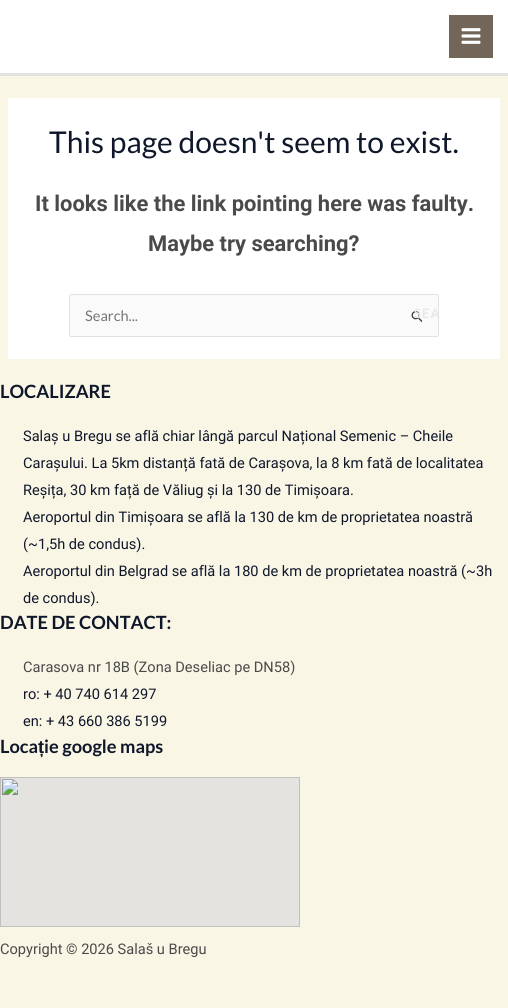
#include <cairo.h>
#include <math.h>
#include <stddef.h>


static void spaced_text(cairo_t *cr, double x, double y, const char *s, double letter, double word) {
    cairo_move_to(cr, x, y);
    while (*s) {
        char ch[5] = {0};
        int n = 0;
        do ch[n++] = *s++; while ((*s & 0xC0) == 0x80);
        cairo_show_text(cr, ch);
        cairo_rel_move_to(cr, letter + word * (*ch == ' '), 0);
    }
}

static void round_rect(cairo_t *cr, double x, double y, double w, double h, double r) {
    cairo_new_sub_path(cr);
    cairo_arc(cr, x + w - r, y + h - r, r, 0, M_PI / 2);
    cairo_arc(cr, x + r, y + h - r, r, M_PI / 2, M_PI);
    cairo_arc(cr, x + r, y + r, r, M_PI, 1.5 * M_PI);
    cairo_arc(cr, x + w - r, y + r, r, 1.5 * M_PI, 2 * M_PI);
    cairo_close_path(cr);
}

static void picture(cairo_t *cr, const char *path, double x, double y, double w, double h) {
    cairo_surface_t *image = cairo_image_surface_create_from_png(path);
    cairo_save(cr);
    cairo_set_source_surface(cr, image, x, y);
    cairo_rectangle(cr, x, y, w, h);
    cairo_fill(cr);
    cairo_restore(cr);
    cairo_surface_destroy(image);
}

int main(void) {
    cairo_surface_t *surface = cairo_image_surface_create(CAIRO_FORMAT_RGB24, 508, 1008);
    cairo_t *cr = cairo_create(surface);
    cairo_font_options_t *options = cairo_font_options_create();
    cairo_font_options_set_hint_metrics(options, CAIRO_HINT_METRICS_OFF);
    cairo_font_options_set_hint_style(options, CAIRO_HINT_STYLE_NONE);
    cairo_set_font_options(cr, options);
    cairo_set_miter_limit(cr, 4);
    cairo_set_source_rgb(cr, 0.98, 0.961, 0.898);
    cairo_paint(cr);
    cairo_set_source_rgb(cr, 1, 1, 1);
    cairo_rectangle(cr, 0, 0, 508, 73);
    cairo_fill(cr);
    cairo_set_source_rgb(cr, 0.886, 0.886, 0.886);
    cairo_rectangle(cr, 0, 73, 508, 3);
    cairo_fill(cr);
    cairo_set_source_rgb(cr, 0.443, 0.4, 0.345);
    cairo_rectangle(cr, 449, 15, 44, 43);
    cairo_fill(cr);
    picture(cr, "img1.png", 461, 28, 20, 16);
    cairo_set_source_rgb(cr, 1, 1, 1);
    cairo_rectangle(cr, 8, 98, 492, 261);
    cairo_fill(cr);
    cairo_select_font_face(cr, "Lato", CAIRO_FONT_SLANT_NORMAL, CAIRO_FONT_WEIGHT_NORMAL);
    cairo_set_font_size(cr, 30);
    cairo_set_source_rgb(cr, 0.059, 0.09, 0.165);
    cairo_move_to(cr, 49, 153);
    cairo_show_text(cr, "This page doesn't seem to exist.");
    cairo_select_font_face(cr, "Roboto", CAIRO_FONT_SLANT_NORMAL, CAIRO_FONT_WEIGHT_BOLD);
    cairo_set_font_size(cr, 21.9);
    cairo_set_source_rgb(cr, 0.29, 0.29, 0.29);
    cairo_move_to(cr, 35, 211);
    cairo_show_text(cr, "It looks like the link pointing here was faulty.");
    cairo_move_to(cr, 148, 251);
    cairo_show_text(cr, "Maybe try searching?");
    cairo_set_source_rgb(cr, 0.98, 0.98, 0.98);
    round_rect(cr, 69.5, 294.5, 369, 42, 1.5);
    cairo_fill_preserve(cr);
    cairo_set_source_rgb(cr, 0.886, 0.886, 0.886);
    cairo_set_line_width(cr, 1);
    cairo_stroke(cr);
    cairo_select_font_face(cr, "Lato", CAIRO_FONT_SLANT_NORMAL, CAIRO_FONT_WEIGHT_NORMAL);
    cairo_set_font_size(cr, 14.6);
    cairo_set_source_rgb(cr, 0.459, 0.459, 0.459);
    cairo_move_to(cr, 85, 321);
    cairo_show_text(cr, "Search...");
    picture(cr, "img2.png", 411, 311, 11, 12);
    cairo_select_font_face(cr, "Lato", CAIRO_FONT_SLANT_NORMAL, CAIRO_FONT_WEIGHT_BOLD);
    cairo_set_font_size(cr, 13);
    cairo_set_source_rgb(cr, 0.906, 0.906, 0.906);
    spaced_text(cr, 414, 318, "SEA", 1, 0);
    cairo_set_font_size(cr, 18.25);
    cairo_set_source_rgb(cr, 0.059, 0.09, 0.165);
    cairo_move_to(cr, 0, 398);
    cairo_show_text(cr, "LOCALIZARE");
    cairo_select_font_face(cr, "Roboto", CAIRO_FONT_SLANT_NORMAL, CAIRO_FONT_WEIGHT_NORMAL);
    cairo_set_font_size(cr, 14.6);
    cairo_move_to(cr, 23, 441);
    cairo_show_text(cr, "Salaș u Bregu se află chiar lângă parcul Național Semenic – Cheile");
    cairo_move_to(cr, 23, 468);
    cairo_show_text(cr, "Carașului. La 5km distanță fată de Carașova, la 8 km fată de localitatea");
    cairo_move_to(cr, 23, 495);
    cairo_show_text(cr, "Reșița, 30 km față de Văliug și la 130 de Timișoara.");
    cairo_move_to(cr, 23, 522);
    cairo_show_text(cr, "Aeroportul din Timișoara se află la 130 de km de proprietatea noastră");
    cairo_move_to(cr, 23, 549);
    cairo_show_text(cr, "(~1,5h de condus).");
    cairo_move_to(cr, 23, 576);
    cairo_show_text(cr, "Aeroportul din Belgrad se află la 180 de km de proprietatea noastră (~3h");
    cairo_move_to(cr, 23, 603);
    cairo_show_text(cr, "de condus).");
    cairo_select_font_face(cr, "Lato", CAIRO_FONT_SLANT_NORMAL, CAIRO_FONT_WEIGHT_BOLD);
    cairo_set_font_size(cr, 18.25);
    cairo_move_to(cr, 0, 629);
    cairo_show_text(cr, "DATE DE CONTACT:");
    cairo_select_font_face(cr, "Roboto", CAIRO_FONT_SLANT_NORMAL, CAIRO_FONT_WEIGHT_NORMAL);
    cairo_set_font_size(cr, 14.6);
    cairo_set_source_rgb(cr, 0.29, 0.29, 0.29);
    cairo_move_to(cr, 23, 672);
    cairo_show_text(cr, "Carasova nr 18B (Zona Deseliac pe DN58)");
    cairo_set_source_rgb(cr, 0.059, 0.09, 0.165);
    cairo_move_to(cr, 23, 699);
    cairo_show_text(cr, "ro: + 40 740 614 297");
    cairo_move_to(cr, 23, 726);
    cairo_show_text(cr, "en: + 43 660 386 5199");
    cairo_select_font_face(cr, "Lato", CAIRO_FONT_SLANT_NORMAL, CAIRO_FONT_WEIGHT_BOLD);
    cairo_set_font_size(cr, 18.25);
    cairo_move_to(cr, 0, 753);
    cairo_show_text(cr, "Loca");
    cairo_select_font_face(cr, "Liberation Sans", CAIRO_FONT_SLANT_NORMAL, CAIRO_FONT_WEIGHT_BOLD);
    cairo_move_to(cr, 38, 753);
    cairo_show_text(cr, "ț");
    cairo_select_font_face(cr, "Lato", CAIRO_FONT_SLANT_NORMAL, CAIRO_FONT_WEIGHT_BOLD);
    cairo_move_to(cr, 44, 753);
    cairo_show_text(cr, "ie google maps");
    picture(cr, "img3.png", 0, 777, 300, 150);
    cairo_select_font_face(cr, "Roboto", CAIRO_FONT_SLANT_NORMAL, CAIRO_FONT_WEIGHT_NORMAL);
    cairo_set_font_size(cr, 14.6);
    cairo_set_source_rgb(cr, 0.29, 0.29, 0.29);
    cairo_move_to(cr, 0, 954);
    cairo_show_text(cr, "Copyright © 2026 Salaš u Bregu");
    cairo_surface_write_to_png(surface, "page.png");
    cairo_font_options_destroy(options);
    cairo_destroy(cr);
    cairo_surface_destroy(surface);
    return 0;
}
